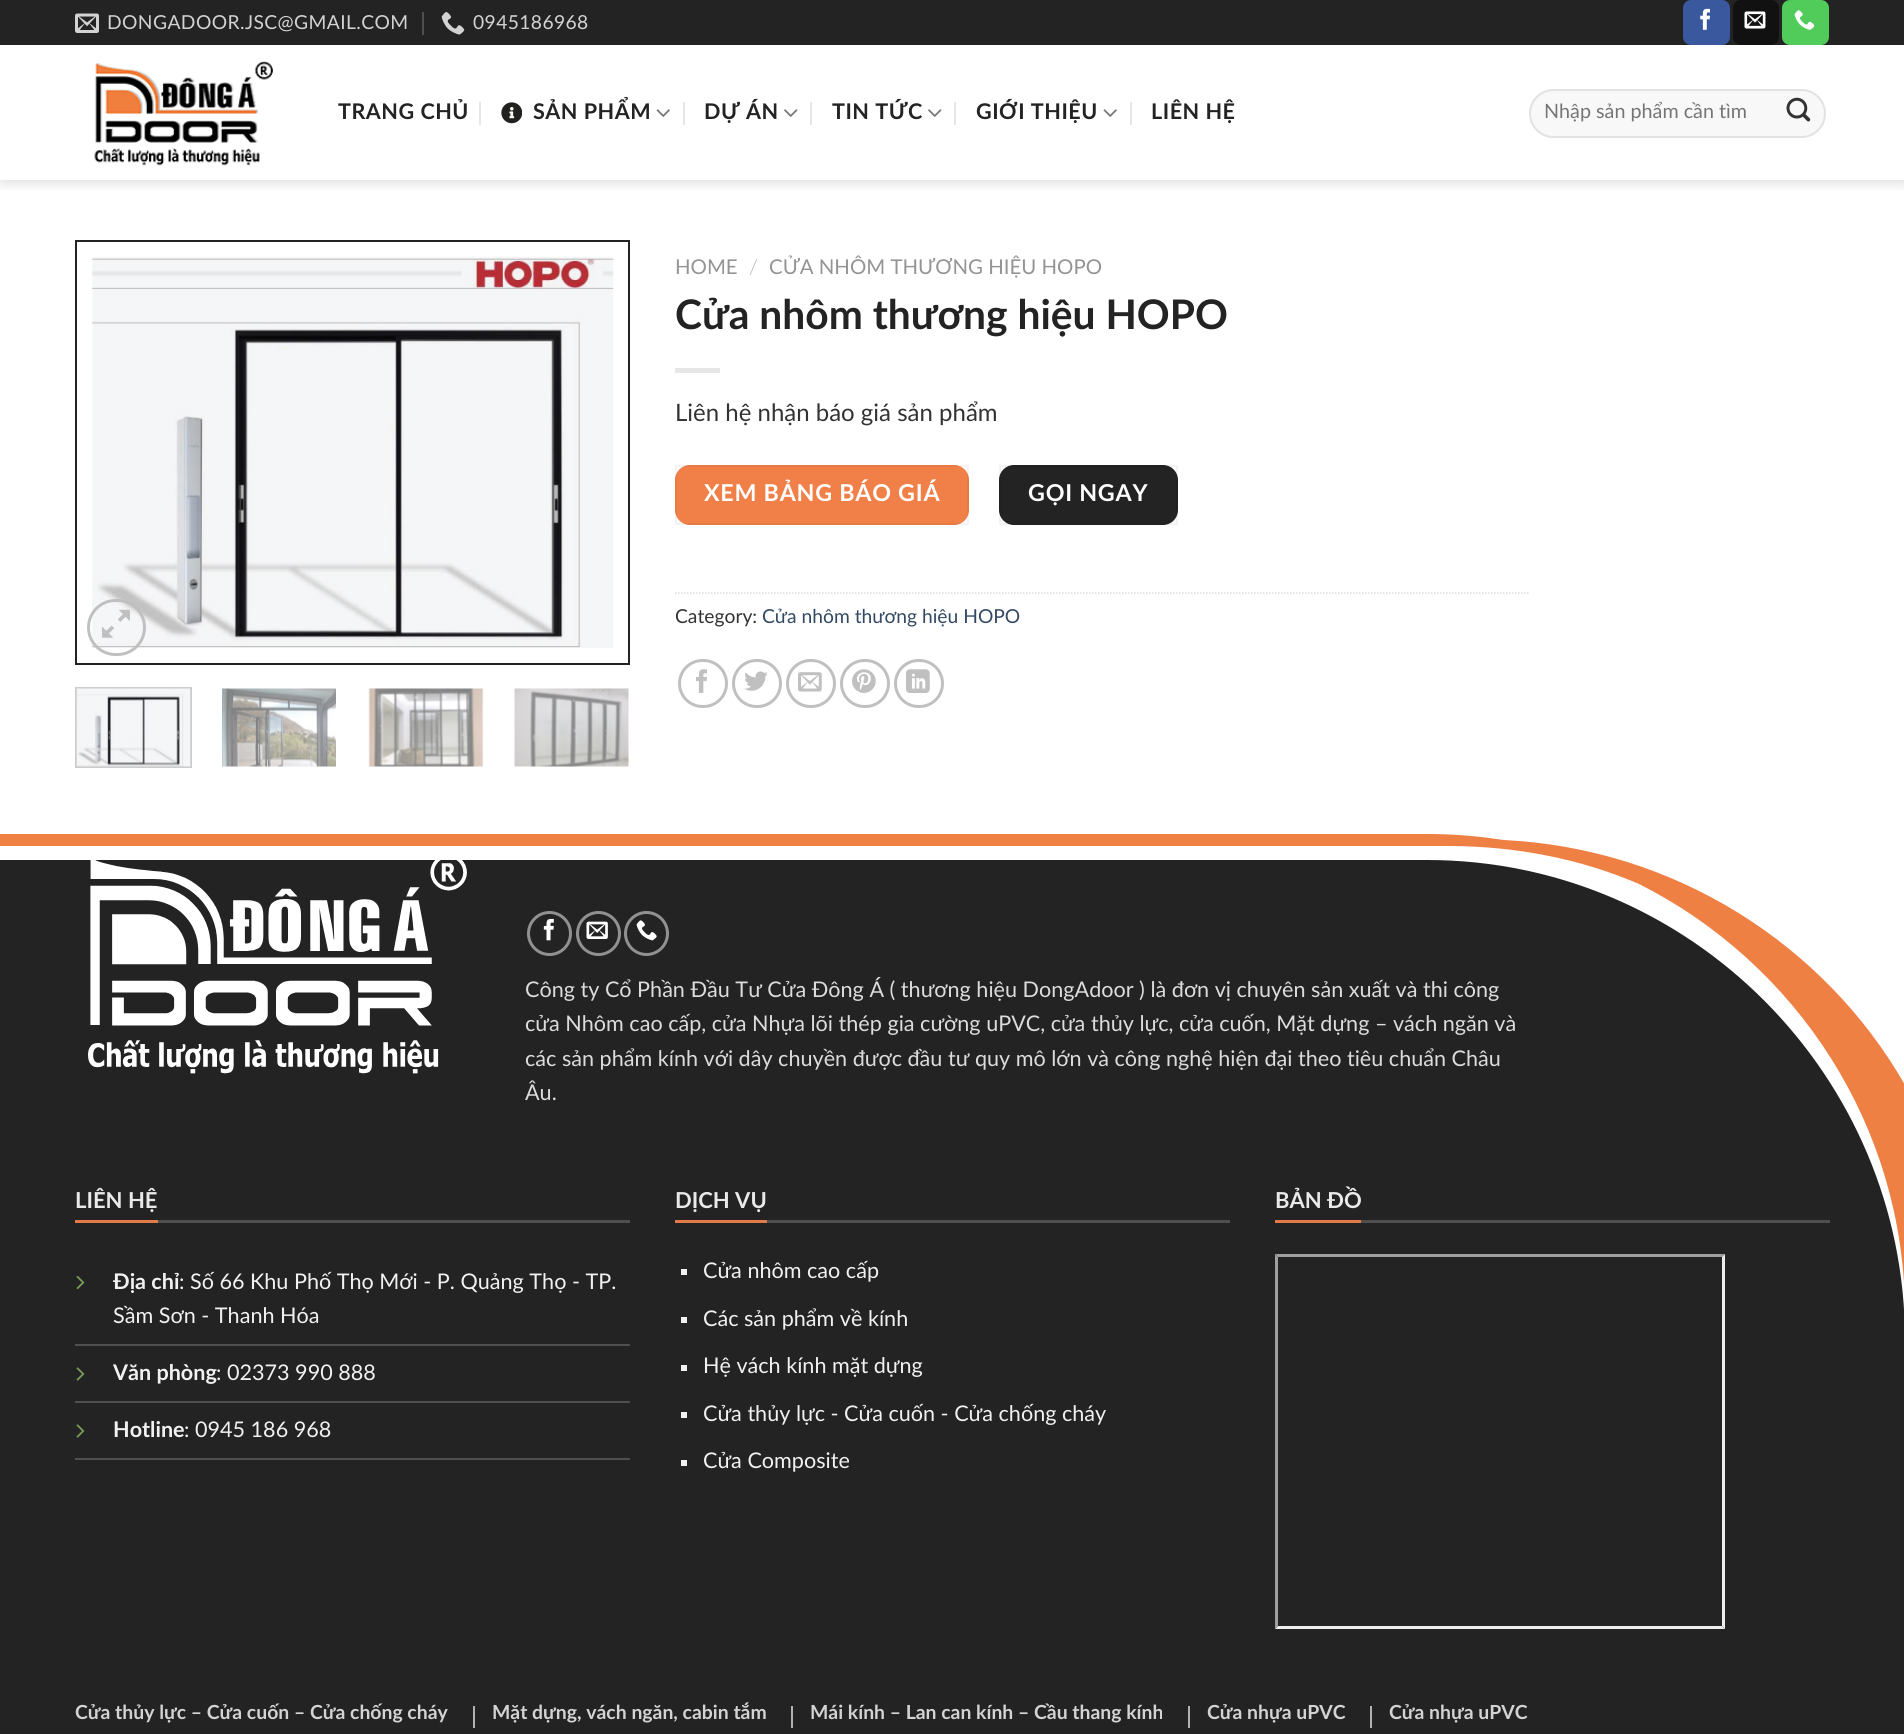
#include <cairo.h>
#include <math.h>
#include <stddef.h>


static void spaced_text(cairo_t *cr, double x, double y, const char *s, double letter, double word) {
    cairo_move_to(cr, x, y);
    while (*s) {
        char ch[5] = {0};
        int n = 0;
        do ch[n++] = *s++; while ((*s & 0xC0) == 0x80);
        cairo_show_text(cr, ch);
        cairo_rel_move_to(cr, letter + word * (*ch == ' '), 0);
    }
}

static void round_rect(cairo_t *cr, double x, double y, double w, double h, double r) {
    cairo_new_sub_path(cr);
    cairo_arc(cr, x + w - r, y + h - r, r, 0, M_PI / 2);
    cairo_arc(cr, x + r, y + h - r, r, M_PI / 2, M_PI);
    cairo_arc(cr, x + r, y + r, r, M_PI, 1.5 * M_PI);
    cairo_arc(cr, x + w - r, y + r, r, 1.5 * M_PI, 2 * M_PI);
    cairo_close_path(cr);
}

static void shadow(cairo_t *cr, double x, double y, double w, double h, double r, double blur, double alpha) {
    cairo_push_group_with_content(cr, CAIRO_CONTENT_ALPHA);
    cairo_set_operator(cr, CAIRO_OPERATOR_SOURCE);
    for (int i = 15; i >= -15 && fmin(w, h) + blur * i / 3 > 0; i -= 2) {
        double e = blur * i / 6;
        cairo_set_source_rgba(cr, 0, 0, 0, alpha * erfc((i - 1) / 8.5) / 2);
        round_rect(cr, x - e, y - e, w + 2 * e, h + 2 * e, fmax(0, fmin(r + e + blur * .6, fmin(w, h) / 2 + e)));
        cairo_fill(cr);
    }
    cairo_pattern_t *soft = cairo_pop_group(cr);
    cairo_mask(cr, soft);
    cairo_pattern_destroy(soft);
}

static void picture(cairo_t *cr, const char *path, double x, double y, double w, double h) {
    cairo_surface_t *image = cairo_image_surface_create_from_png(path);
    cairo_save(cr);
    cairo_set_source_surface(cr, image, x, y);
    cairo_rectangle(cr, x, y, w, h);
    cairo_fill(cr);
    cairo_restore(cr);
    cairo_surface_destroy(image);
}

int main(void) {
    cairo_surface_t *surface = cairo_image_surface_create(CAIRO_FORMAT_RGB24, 1904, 1734);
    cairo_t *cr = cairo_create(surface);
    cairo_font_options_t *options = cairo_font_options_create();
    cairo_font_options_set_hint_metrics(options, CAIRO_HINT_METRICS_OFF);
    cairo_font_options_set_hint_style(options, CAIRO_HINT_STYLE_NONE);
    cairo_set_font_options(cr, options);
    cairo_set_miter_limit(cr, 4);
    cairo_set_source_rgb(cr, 1, 1, 1);
    cairo_paint(cr);
    cairo_save(cr);
    cairo_rectangle(cr, 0, 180, 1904, 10);
    cairo_clip(cr);
    cairo_set_source_rgb(cr, 0, 0, 0);
    shadow(cr, 2, 2, 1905, 180, 0, 7.5, 0.15);
    cairo_restore(cr);
    cairo_set_source_rgb(cr, 0.137, 0.137, 0.137);
    cairo_rectangle(cr, 0, 0, 1904, 45);
    cairo_fill(cr);
    picture(cr, "img1.png", 75, 13, 24, 20);
    cairo_select_font_face(cr, "Lato", CAIRO_FONT_SLANT_NORMAL, CAIRO_FONT_WEIGHT_NORMAL);
    cairo_set_font_size(cr, 19.25);
    cairo_set_source_rgb(cr, 0.827, 0.827, 0.827);
    spaced_text(cr, 107, 29, "DONGADOOR.JSC@GMAIL.COM", 0.4, 0);
    cairo_set_source_rgb(cr, 0.31, 0.31, 0.31);
    cairo_rectangle(cr, 422, 12, 2, 23);
    cairo_fill(cr);
    picture(cr, "img2.png", 441, 12, 24, 23);
    cairo_set_source_rgb(cr, 0.827, 0.827, 0.827);
    spaced_text(cr, 473, 29, "0945186968", 0.4, 0);
    cairo_set_source_rgb(cr, 0.227, 0.345, 0.616);
    round_rect(cr, 1684, 1, 45, 43, 7);
    cairo_fill_preserve(cr);
    cairo_stroke(cr);
    picture(cr, "img3.png", 1700, 8, 10, 22);
    cairo_set_source_rgb(cr, 0.067, 0.067, 0.067);
    round_rect(cr, 1734, 1, 44, 43, 7);
    cairo_fill_preserve(cr);
    cairo_stroke(cr);
    picture(cr, "img4.png", 1744, 11, 22, 18);
    cairo_set_source_rgb(cr, 0.318, 0.796, 0.353);
    round_rect(cr, 1783, 1, 45, 43, 7);
    cairo_fill_preserve(cr);
    cairo_stroke(cr);
    picture(cr, "img5.png", 1794, 10, 21, 20);
    picture(cr, "img6.png", 94, 61, 179, 105);
    cairo_select_font_face(cr, "Lato", CAIRO_FONT_SLANT_NORMAL, CAIRO_FONT_WEIGHT_BOLD);
    cairo_set_font_size(cr, 21.6);
    cairo_set_source_rgb(cr, 0.137, 0.137, 0.137);
    spaced_text(cr, 338, 119, "TRANG CHỦ", 0.5, 0);
    cairo_set_source_rgb(cr, 0.902, 0.902, 0.902);
    cairo_rectangle(cr, 479, 102, 2, 23);
    cairo_fill(cr);
    picture(cr, "img7.png", 501, 102, 21, 22);
    cairo_set_source_rgb(cr, 0.137, 0.137, 0.137);
    spaced_text(cr, 533, 119, "SẢN PHẨM", 0.5, 0);
    picture(cr, "img8.png", 656, 109, 14, 8);
    cairo_set_source_rgb(cr, 0.902, 0.902, 0.902);
    cairo_rectangle(cr, 683, 102, 2, 23);
    cairo_fill(cr);
    cairo_set_source_rgb(cr, 0.137, 0.137, 0.137);
    spaced_text(cr, 704, 119, "DỰ ÁN", 0.5, 0);
    picture(cr, "img9.png", 784, 109, 14, 8);
    cairo_set_source_rgb(cr, 0.902, 0.902, 0.902);
    cairo_rectangle(cr, 810, 102, 2, 23);
    cairo_fill(cr);
    cairo_set_source_rgb(cr, 0.137, 0.137, 0.137);
    spaced_text(cr, 832, 119, "TIN TỨC", 0.5, 0);
    picture(cr, "img9.png", 928, 109, 14, 8);
    cairo_set_source_rgb(cr, 0.902, 0.902, 0.902);
    cairo_rectangle(cr, 954, 102, 2, 23);
    cairo_fill(cr);
    cairo_set_source_rgb(cr, 0.137, 0.137, 0.137);
    spaced_text(cr, 976, 119, "GIỚI THIỆU", 0.5, 0);
    picture(cr, "img8.png", 1103, 109, 14, 8);
    cairo_set_source_rgb(cr, 0.902, 0.902, 0.902);
    cairo_rectangle(cr, 1130, 102, 2, 23);
    cairo_fill(cr);
    cairo_set_source_rgb(cr, 0.137, 0.137, 0.137);
    spaced_text(cr, 1151, 119, "LIÊN HỆ", 0.5, 0);
    cairo_set_source_rgb(cr, 0.969, 0.969, 0.969);
    round_rect(cr, 1529, 89, 297, 49, 24.5);
    cairo_fill(cr);
    round_rect(cr, 1530, 90, 295, 47, 23.5);
    cairo_set_source_rgba(cr, 0, 0, 0, 0.09);
    cairo_stroke(cr);
    cairo_select_font_face(cr, "Lato", CAIRO_FONT_SLANT_NORMAL, CAIRO_FONT_WEIGHT_NORMAL);
    cairo_set_font_size(cr, 19.75);
    cairo_set_source_rgb(cr, 0.459, 0.459, 0.459);
    cairo_move_to(cr, 1544, 118);
    cairo_show_text(cr, "Nhập sản phẩm cần tìm");
    picture(cr, "img10.png", 1786, 97, 25, 25);
    cairo_rectangle(cr, 76, 241, 553, 423);
    cairo_set_source_rgb(cr, 0.137, 0.137, 0.137);
    cairo_stroke(cr);
    picture(cr, "img11.png", 91, 256, 523, 392);
    round_rect(cr, 88.5, 600.5, 56, 54, 27);
    cairo_set_source_rgb(cr, 0.753, 0.753, 0.753);
    cairo_set_line_width(cr, 3);
    cairo_stroke(cr);
    picture(cr, "img12.png", 102, 609, 28, 29);
    cairo_rectangle(cr, 76, 688, 115, 79);
    cairo_set_source_rgb(cr, 0.8, 0.8, 0.8);
    cairo_set_line_width(cr, 2);
    cairo_stroke(cr);
    picture(cr, "img13.png", 76, 688, 115, 79);
    picture(cr, "img14.png", 222, 688, 114, 79);
    picture(cr, "img15.png", 368, 688, 116, 79);
    picture(cr, "img16.png", 514, 688, 115, 79);
    cairo_set_font_size(cr, 20.4);
    cairo_set_source_rgb(cr, 0.58, 0.58, 0.58);
    cairo_move_to(cr, 675, 274);
    cairo_show_text(cr, "HOME");
    cairo_select_font_face(cr, "Lato Light", CAIRO_FONT_SLANT_NORMAL, CAIRO_FONT_WEIGHT_NORMAL);
    cairo_set_source_rgb(cr, 0.698, 0.698, 0.698);
    cairo_move_to(cr, 749, 274);
    cairo_show_text(cr, "/");
    cairo_select_font_face(cr, "Lato", CAIRO_FONT_SLANT_NORMAL, CAIRO_FONT_WEIGHT_NORMAL);
    cairo_set_source_rgb(cr, 0.58, 0.58, 0.58);
    cairo_move_to(cr, 769, 274);
    cairo_show_text(cr, "CỬA NHÔM THƯƠNG HIỆU HOPO");
    cairo_select_font_face(cr, "Lato", CAIRO_FONT_SLANT_NORMAL, CAIRO_FONT_WEIGHT_BOLD);
    cairo_set_font_size(cr, 40.75);
    cairo_set_source_rgb(cr, 0.137, 0.137, 0.137);
    cairo_move_to(cr, 675, 329);
    cairo_show_text(cr, "Cửa nhôm thương hiệu HOPO");
    cairo_set_source_rgb(cr, 0.902, 0.902, 0.902);
    cairo_rectangle(cr, 675, 368, 45, 5);
    cairo_fill(cr);
    cairo_select_font_face(cr, "Lato", CAIRO_FONT_SLANT_NORMAL, CAIRO_FONT_WEIGHT_NORMAL);
    cairo_set_font_size(cr, 24);
    cairo_set_source_rgb(cr, 0.2, 0.2, 0.2);
    cairo_move_to(cr, 675, 421);
    cairo_show_text(cr, "Liên hệ nhận báo giá sản phẩm");
    cairo_set_source_rgb(cr, 0.945, 0.502, 0.282);
    round_rect(cr, 675, 465, 294, 60, 15);
    cairo_fill(cr);
    cairo_rectangle(cr, 676, 466, 292, 58);
    cairo_set_source_rgba(cr, 0, 0, 0, 0.05);
    cairo_stroke(cr);
    cairo_select_font_face(cr, "Lato", CAIRO_FONT_SLANT_NORMAL, CAIRO_FONT_WEIGHT_BOLD);
    cairo_set_font_size(cr, 23.25);
    cairo_set_source_rgb(cr, 1, 1, 1);
    spaced_text(cr, 704, 501, "XEM BẢNG BÁO GIÁ", 0.75, 0);
    cairo_set_source_rgb(cr, 0.137, 0.137, 0.137);
    round_rect(cr, 999, 465, 179, 60, 15);
    cairo_fill(cr);
    cairo_rectangle(cr, 1000, 466, 177, 58);
    cairo_set_source_rgba(cr, 0, 0, 0, 0.05);
    cairo_stroke(cr);
    cairo_set_source_rgb(cr, 1, 1, 1);
    spaced_text(cr, 1028, 501, "GỌI NGAY", 0.75, 0);
    cairo_new_path(cr);
    cairo_move_to(cr, 675, 593);
    cairo_line_to(cr, 1530, 593);
    cairo_set_source_rgb(cr, 0.867, 0.867, 0.867);
    cairo_set_line_width(cr, 1.5);
    cairo_set_dash(cr, (double[]){1.5, 1.5}, 2, 0);
    cairo_stroke(cr);
    cairo_select_font_face(cr, "Lato", CAIRO_FONT_SLANT_NORMAL, CAIRO_FONT_WEIGHT_NORMAL);
    cairo_set_font_size(cr, 19.25);
    cairo_set_source_rgb(cr, 0.2, 0.2, 0.2);
    cairo_move_to(cr, 675, 623);
    cairo_show_text(cr, "Category:");
    cairo_set_source_rgb(cr, 0.2, 0.282, 0.384);
    cairo_move_to(cr, 762, 623);
    cairo_show_text(cr, "Cửa nhôm thương hiệu HOPO");
    round_rect(cr, 679.5, 660.5, 47, 46, 23);
    cairo_set_source_rgb(cr, 0.753, 0.753, 0.753);
    cairo_set_line_width(cr, 3);
    cairo_set_dash(cr, NULL, 0, 0);
    cairo_stroke(cr);
    picture(cr, "img17.png", 696, 669, 11, 24);
    round_rect(cr, 733.5, 660.5, 47, 46, 23);
    cairo_stroke(cr);
    picture(cr, "img18.png", 744, 671, 24, 20);
    round_rect(cr, 787.5, 660.5, 47, 46, 23);
    cairo_stroke(cr);
    picture(cr, "img19.png", 798, 672, 24, 20);
    round_rect(cr, 841.5, 660.5, 47, 46, 23);
    cairo_stroke(cr);
    picture(cr, "img20.png", 852, 669, 24, 24);
    round_rect(cr, 895.5, 660.5, 47, 46, 23);
    cairo_stroke(cr);
    picture(cr, "img21.png", 906, 669, 24, 24);
    cairo_set_source_rgb(cr, 0.137, 0.137, 0.137);
    cairo_rectangle(cr, 0, 1338, 1904, 396);
    cairo_fill(cr);
    cairo_save(cr);
    cairo_rectangle(cr, 0, 834, 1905, 504);
    cairo_clip(cr);
    cairo_set_fill_rule(cr, CAIRO_FILL_RULE_EVEN_ODD);
    cairo_new_path(cr);
    cairo_move_to(cr, 0, 1341);
    cairo_line_to(cr, 0, 860);
    cairo_line_to(cr, 1427, 860);
    cairo_curve_to(cr, 1690, 860, 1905, 1076, 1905, 1340);
    cairo_line_to(cr, 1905, 1341);
    cairo_close_path(cr);
    cairo_fill(cr);
    cairo_restore(cr);
    cairo_set_source_rgb(cr, 0.933, 0.502, 0.267);
    cairo_new_path(cr);
    cairo_move_to(cr, 1503, 840);
    cairo_curve_to(cr, 1478, 836, 1453, 834, 1427, 834);
    cairo_line_to(cr, 0, 834);
    cairo_line_to(cr, 0, 846);
    cairo_line_to(cr, 1448, 846);
    cairo_curve_to(cr, 1516, 846, 1581, 859, 1639, 884);
    cairo_curve_to(cr, 1796, 963, 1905, 1126, 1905, 1314);
    cairo_line_to(cr, 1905, 1085);
    cairo_curve_to(cr, 1825, 945, 1675, 848, 1503, 840);
    cairo_close_path(cr);
    cairo_fill(cr);
    picture(cr, "img22.png", 88, 860, 379, 214);
    cairo_arc(cr, 549.5, 933.5, 21, 0, 2 * M_PI);
    cairo_set_source_rgb(cr, 0.569, 0.569, 0.569);
    cairo_stroke(cr);
    picture(cr, "img23.png", 543, 918, 11, 23);
    cairo_arc(cr, 598.5, 933.5, 21, 0, 2 * M_PI);
    cairo_stroke(cr);
    picture(cr, "img24.png", 586, 921, 22, 18);
    cairo_arc(cr, 646.5, 933.5, 21, 0, 2 * M_PI);
    cairo_stroke(cr);
    picture(cr, "img25.png", 636, 920, 21, 21);
    cairo_set_font_size(cr, 21.6);
    cairo_set_source_rgb(cr, 0.863, 0.863, 0.863);
    cairo_move_to(cr, 525, 997);
    cairo_show_text(cr, "Công ty Cổ Phần Đầu Tư Cửa Đông Á ( thương hiệu DongAdoor ) là đơn vị chuyên sản xuất và thi công");
    cairo_move_to(cr, 525, 1031);
    cairo_show_text(cr, "cửa Nhôm cao cấp, cửa Nhựa lõi thép gia cường uPVC, cửa thủy lực, cửa cuốn, Mặt dựng – vách ngăn và");
    cairo_move_to(cr, 525, 1066);
    cairo_show_text(cr, "các sản phẩm kính với dây chuyền được đầu tư quy mô lớn và công nghệ hiện đại theo tiêu chuẩn Châu");
    cairo_move_to(cr, 525, 1100);
    cairo_show_text(cr, "Âu.");
    cairo_set_source_rgb(cr, 0.31, 0.31, 0.31);
    cairo_rectangle(cr, 158, 1220, 472, 3);
    cairo_fill(cr);
    cairo_set_source_rgb(cr, 0.882, 0.482, 0.286);
    cairo_rectangle(cr, 75, 1220, 83, 3);
    cairo_fill(cr);
    cairo_select_font_face(cr, "Lato", CAIRO_FONT_SLANT_NORMAL, CAIRO_FONT_WEIGHT_BOLD);
    cairo_set_font_size(cr, 22);
    cairo_set_source_rgb(cr, 0.914, 0.914, 0.914);
    cairo_move_to(cr, 75, 1208);
    cairo_show_text(cr, "LIÊN HỆ");
    cairo_set_source_rgb(cr, 0.31, 0.31, 0.31);
    cairo_rectangle(cr, 75, 1344, 555, 2);
    cairo_fill(cr);
    picture(cr, "img26.png", 76, 1275, 9, 15);
    cairo_set_font_size(cr, 21.6);
    cairo_set_source_rgb(cr, 0.945, 0.945, 0.945);
    cairo_move_to(cr, 113, 1289);
    cairo_show_text(cr, "Địa chỉ");
    cairo_select_font_face(cr, "Lato", CAIRO_FONT_SLANT_NORMAL, CAIRO_FONT_WEIGHT_NORMAL);
    cairo_move_to(cr, 179, 1289);
    cairo_show_text(cr, ": Số 66 Khu Phố Thọ Mới - P. Quảng Thọ - TP.");
    cairo_move_to(cr, 113, 1323);
    cairo_show_text(cr, "Sầm Sơn - Thanh Hóa");
    cairo_set_source_rgb(cr, 0.31, 0.31, 0.31);
    cairo_rectangle(cr, 75, 1401, 555, 2);
    cairo_fill(cr);
    picture(cr, "img27.png", 76, 1367, 9, 14);
    cairo_select_font_face(cr, "Lato", CAIRO_FONT_SLANT_NORMAL, CAIRO_FONT_WEIGHT_BOLD);
    cairo_set_source_rgb(cr, 0.945, 0.945, 0.945);
    cairo_move_to(cr, 113, 1380);
    cairo_show_text(cr, "Văn phòng");
    cairo_select_font_face(cr, "Lato", CAIRO_FONT_SLANT_NORMAL, CAIRO_FONT_WEIGHT_NORMAL);
    cairo_move_to(cr, 216, 1380);
    cairo_show_text(cr, ": 02373 990 888");
    cairo_set_source_rgb(cr, 0.31, 0.31, 0.31);
    cairo_rectangle(cr, 75, 1458, 555, 2);
    cairo_fill(cr);
    picture(cr, "img27.png", 76, 1424, 9, 14);
    cairo_select_font_face(cr, "Lato", CAIRO_FONT_SLANT_NORMAL, CAIRO_FONT_WEIGHT_BOLD);
    cairo_set_source_rgb(cr, 0.945, 0.945, 0.945);
    cairo_move_to(cr, 113, 1437);
    cairo_show_text(cr, "Hotline");
    cairo_select_font_face(cr, "Lato", CAIRO_FONT_SLANT_NORMAL, CAIRO_FONT_WEIGHT_NORMAL);
    cairo_move_to(cr, 184, 1437);
    cairo_show_text(cr, ": 0945 186 968");
    cairo_set_source_rgb(cr, 0.31, 0.31, 0.31);
    cairo_rectangle(cr, 767, 1220, 463, 3);
    cairo_fill(cr);
    cairo_set_source_rgb(cr, 0.882, 0.482, 0.286);
    cairo_rectangle(cr, 675, 1220, 92, 3);
    cairo_fill(cr);
    cairo_select_font_face(cr, "Lato", CAIRO_FONT_SLANT_NORMAL, CAIRO_FONT_WEIGHT_BOLD);
    cairo_set_font_size(cr, 22);
    cairo_set_source_rgb(cr, 0.914, 0.914, 0.914);
    cairo_move_to(cr, 675, 1208);
    cairo_show_text(cr, "DỊCH VỤ");
    cairo_set_source_rgb(cr, 0.945, 0.945, 0.945);
    cairo_rectangle(cr, 681, 1269, 6, 6);
    cairo_fill(cr);
    cairo_select_font_face(cr, "Lato", CAIRO_FONT_SLANT_NORMAL, CAIRO_FONT_WEIGHT_NORMAL);
    cairo_set_font_size(cr, 21.6);
    cairo_move_to(cr, 703, 1278);
    cairo_show_text(cr, "Cửa nhôm cao cấp");
    cairo_rectangle(cr, 681, 1317, 6, 6);
    cairo_fill(cr);
    cairo_move_to(cr, 703, 1326);
    cairo_show_text(cr, "Các sản phẩm về kính");
    cairo_rectangle(cr, 681, 1365, 6, 6);
    cairo_fill(cr);
    cairo_move_to(cr, 703, 1373);
    cairo_show_text(cr, "Hệ vách kính mặt dựng");
    cairo_rectangle(cr, 681, 1412, 6, 6);
    cairo_fill(cr);
    cairo_move_to(cr, 703, 1421);
    cairo_show_text(cr, "Cửa thủy lực - Cửa cuốn - Cửa chống cháy");
    cairo_rectangle(cr, 681, 1460, 6, 6);
    cairo_fill(cr);
    cairo_move_to(cr, 703, 1468);
    cairo_show_text(cr, "Cửa Composite");
    cairo_set_source_rgb(cr, 0.31, 0.31, 0.31);
    cairo_rectangle(cr, 1361, 1220, 469, 3);
    cairo_fill(cr);
    cairo_set_source_rgb(cr, 0.882, 0.482, 0.286);
    cairo_rectangle(cr, 1275, 1220, 86, 3);
    cairo_fill(cr);
    cairo_select_font_face(cr, "Lato", CAIRO_FONT_SLANT_NORMAL, CAIRO_FONT_WEIGHT_BOLD);
    cairo_set_font_size(cr, 22);
    cairo_set_source_rgb(cr, 0.914, 0.914, 0.914);
    cairo_move_to(cr, 1275, 1208);
    cairo_show_text(cr, "BẢN ĐỒ");
    cairo_set_source_rgb(cr, 0.624, 0.624, 0.624);
    cairo_new_path(cr);
    cairo_move_to(cr, 1275, 1254);
    cairo_line_to(cr, 1725, 1254);
    cairo_line_to(cr, 1722, 1257);
    cairo_line_to(cr, 1278, 1257);
    cairo_close_path(cr);
    cairo_fill(cr);
    cairo_set_source_rgb(cr, 0.933, 0.933, 0.933);
    cairo_new_path(cr);
    cairo_move_to(cr, 1725, 1254);
    cairo_line_to(cr, 1725, 1629);
    cairo_line_to(cr, 1722, 1626);
    cairo_line_to(cr, 1722, 1257);
    cairo_close_path(cr);
    cairo_fill(cr);
    cairo_new_path(cr);
    cairo_move_to(cr, 1725, 1629);
    cairo_line_to(cr, 1275, 1629);
    cairo_line_to(cr, 1278, 1626);
    cairo_line_to(cr, 1722, 1626);
    cairo_close_path(cr);
    cairo_fill(cr);
    cairo_set_source_rgb(cr, 0.624, 0.624, 0.624);
    cairo_new_path(cr);
    cairo_move_to(cr, 1275, 1629);
    cairo_line_to(cr, 1275, 1254);
    cairo_line_to(cr, 1278, 1257);
    cairo_line_to(cr, 1278, 1626);
    cairo_close_path(cr);
    cairo_fill(cr);
    cairo_set_font_size(cr, 19.4);
    cairo_set_source_rgb(cr, 0.827, 0.827, 0.827);
    cairo_move_to(cr, 75, 1719);
    cairo_show_text(cr, "Cửa thủy lực – Cửa cuốn – Cửa chống cháy");
    cairo_set_source_rgb(cr, 0.698, 0.698, 0.698);
    cairo_rectangle(cr, 473, 1706, 2, 22);
    cairo_fill(cr);
    cairo_set_source_rgb(cr, 0.827, 0.827, 0.827);
    cairo_move_to(cr, 492, 1719);
    cairo_show_text(cr, "Mặt dựng, vách ngăn, cabin tắm");
    cairo_set_source_rgb(cr, 0.698, 0.698, 0.698);
    cairo_rectangle(cr, 791, 1706, 2, 22);
    cairo_fill(cr);
    cairo_set_source_rgb(cr, 0.827, 0.827, 0.827);
    cairo_move_to(cr, 810, 1719);
    cairo_show_text(cr, "Mái kính – Lan can kính – Cầu thang kính");
    cairo_set_source_rgb(cr, 0.698, 0.698, 0.698);
    cairo_rectangle(cr, 1188, 1706, 2, 22);
    cairo_fill(cr);
    cairo_set_source_rgb(cr, 0.827, 0.827, 0.827);
    cairo_move_to(cr, 1207, 1719);
    cairo_show_text(cr, "Cửa nhựa uPVC");
    cairo_set_source_rgb(cr, 0.698, 0.698, 0.698);
    cairo_rectangle(cr, 1370, 1706, 2, 22);
    cairo_fill(cr);
    cairo_set_source_rgb(cr, 0.827, 0.827, 0.827);
    cairo_move_to(cr, 1389, 1719);
    cairo_show_text(cr, "Cửa nhựa uPVC");
    cairo_surface_write_to_png(surface, "page.png");
    cairo_font_options_destroy(options);
    cairo_destroy(cr);
    cairo_surface_destroy(surface);
    return 0;
}
